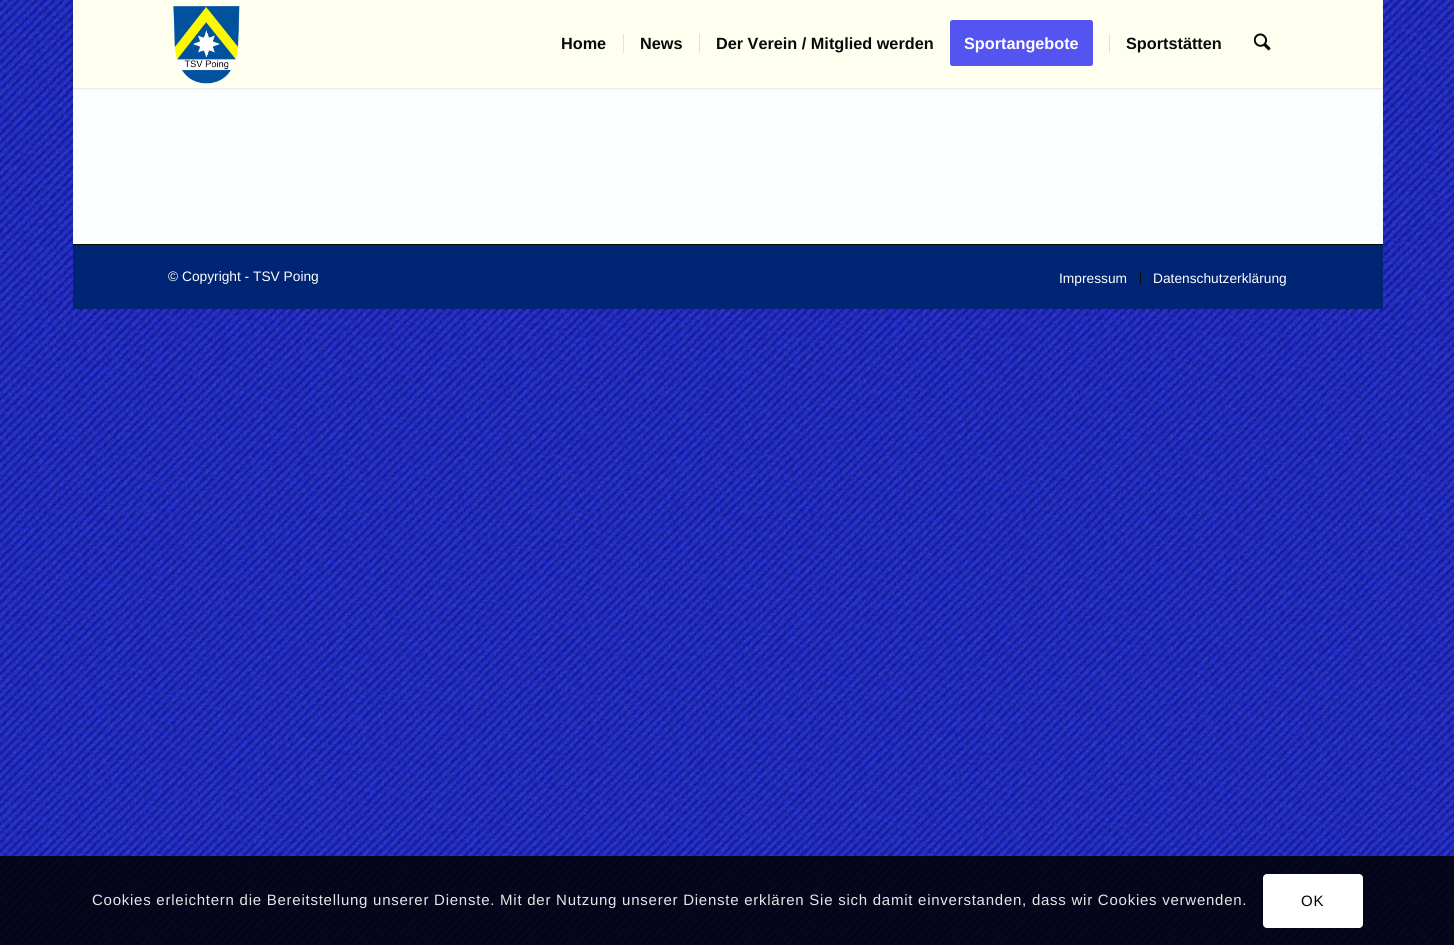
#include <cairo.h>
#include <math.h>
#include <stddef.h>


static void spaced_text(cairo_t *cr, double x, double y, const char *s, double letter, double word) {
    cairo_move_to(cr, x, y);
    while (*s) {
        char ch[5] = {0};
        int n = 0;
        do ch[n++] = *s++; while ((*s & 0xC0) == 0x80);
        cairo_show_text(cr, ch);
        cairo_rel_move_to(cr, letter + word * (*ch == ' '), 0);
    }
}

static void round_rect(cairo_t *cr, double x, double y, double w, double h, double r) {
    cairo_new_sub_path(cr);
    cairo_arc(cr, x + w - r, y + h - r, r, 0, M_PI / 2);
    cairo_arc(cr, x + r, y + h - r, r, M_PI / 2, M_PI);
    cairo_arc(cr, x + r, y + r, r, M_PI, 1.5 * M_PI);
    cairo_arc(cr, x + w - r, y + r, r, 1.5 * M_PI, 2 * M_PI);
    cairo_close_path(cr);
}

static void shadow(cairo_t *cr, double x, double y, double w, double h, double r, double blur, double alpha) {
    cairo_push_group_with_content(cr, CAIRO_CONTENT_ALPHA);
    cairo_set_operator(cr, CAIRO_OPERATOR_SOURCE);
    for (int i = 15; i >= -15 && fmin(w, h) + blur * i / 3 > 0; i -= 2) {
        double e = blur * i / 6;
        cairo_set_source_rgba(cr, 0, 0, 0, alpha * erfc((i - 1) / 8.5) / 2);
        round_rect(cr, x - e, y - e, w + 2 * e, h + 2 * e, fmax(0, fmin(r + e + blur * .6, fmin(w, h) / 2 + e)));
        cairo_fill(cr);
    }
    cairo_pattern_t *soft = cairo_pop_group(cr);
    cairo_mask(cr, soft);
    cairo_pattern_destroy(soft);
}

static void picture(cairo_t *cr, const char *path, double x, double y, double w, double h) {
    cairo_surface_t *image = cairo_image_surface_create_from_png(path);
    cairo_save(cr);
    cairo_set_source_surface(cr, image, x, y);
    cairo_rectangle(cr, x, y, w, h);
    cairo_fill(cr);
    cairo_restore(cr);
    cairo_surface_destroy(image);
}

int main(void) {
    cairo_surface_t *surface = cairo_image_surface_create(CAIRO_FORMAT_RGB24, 1454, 945);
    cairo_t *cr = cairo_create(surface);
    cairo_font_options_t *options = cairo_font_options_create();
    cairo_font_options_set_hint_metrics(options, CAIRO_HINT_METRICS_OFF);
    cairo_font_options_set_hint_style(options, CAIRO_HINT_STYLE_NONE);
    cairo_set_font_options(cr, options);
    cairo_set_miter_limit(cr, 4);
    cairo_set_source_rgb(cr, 0.059, 0.106, 0.812);
    cairo_paint(cr);
    picture(cr, "img1.png", 0, 0, 1454, 945);
    cairo_set_source_rgb(cr, 0.98, 0.996, 1);
    cairo_rectangle(cr, 73, 88, 1310, 156);
    cairo_fill(cr);
    cairo_set_source_rgb(cr, 0, 0, 0);
    shadow(cr, 71, -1, 1313, 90, 0, 1, 0.1);
    cairo_set_source_rgb(cr, 1, 1, 0.941);
    cairo_rectangle(cr, 73, 0, 1310, 88);
    cairo_fill(cr);
    picture(cr, "img2.png", 173, 6, 67, 78);
    cairo_select_font_face(cr, "Liberation Sans", CAIRO_FONT_SLANT_NORMAL, CAIRO_FONT_WEIGHT_BOLD);
    cairo_set_font_size(cr, 16.25);
    cairo_set_source_rgb(cr, 0.035, 0.039, 0.039);
    cairo_move_to(cr, 561, 49);
    cairo_show_text(cr, "Home");
    cairo_move_to(cr, 640, 49);
    cairo_show_text(cr, "News");
    cairo_set_source_rgb(cr, 0.882, 0.882, 0.882);
    cairo_rectangle(cr, 623, 34, 1, 19);
    cairo_fill(cr);
    cairo_set_source_rgb(cr, 0.035, 0.039, 0.039);
    cairo_move_to(cr, 716, 49);
    cairo_show_text(cr, "Der Verein / Mitglied werden");
    cairo_set_source_rgb(cr, 0.882, 0.882, 0.882);
    cairo_rectangle(cr, 699, 34, 1, 19);
    cairo_fill(cr);
    cairo_set_source_rgb(cr, 0.329, 0.329, 0.941);
    round_rect(cr, 951.5, 21.5, 140, 43, 1);
    cairo_fill_preserve(cr);
    cairo_set_line_width(cr, 3);
    cairo_stroke(cr);
    cairo_set_source_rgb(cr, 1, 1, 1);
    cairo_move_to(cr, 964, 49);
    cairo_show_text(cr, "Sportangebote");
    cairo_set_source_rgb(cr, 0.035, 0.039, 0.039);
    cairo_move_to(cr, 1126, 49);
    cairo_show_text(cr, "Sportstätten");
    cairo_set_source_rgb(cr, 0.882, 0.882, 0.882);
    cairo_rectangle(cr, 1109, 34, 1, 19);
    cairo_fill(cr);
    picture(cr, "img3.png", 1254, 33, 17, 18);
    cairo_set_source_rgb(cr, 0, 0.145, 0.455);
    cairo_rectangle(cr, 73, 245, 1310, 64);
    cairo_fill(cr);
    cairo_set_source_rgb(cr, 0.035, 0.039, 0.039);
    cairo_rectangle(cr, 73, 244, 1310, 1);
    cairo_fill(cr);
    cairo_select_font_face(cr, "Liberation Sans", CAIRO_FONT_SLANT_NORMAL, CAIRO_FONT_WEIGHT_NORMAL);
    cairo_set_font_size(cr, 13.75);
    cairo_set_source_rgb(cr, 1, 1, 1);
    cairo_move_to(cr, 168, 281);
    cairo_show_text(cr, "© Copyright - TSV Poing");
    cairo_move_to(cr, 1059, 283);
    cairo_show_text(cr, "Impressum");
    cairo_set_source_rgb(cr, 0.035, 0.039, 0.039);
    cairo_rectangle(cr, 1140, 271, 1, 13);
    cairo_fill(cr);
    cairo_set_source_rgb(cr, 1, 1, 1);
    cairo_move_to(cr, 1153, 283);
    cairo_show_text(cr, "Datenschutzerklärung");
    cairo_set_source_rgba(cr, 0, 0, 0, 0.85);
    cairo_rectangle(cr, 0, 856, 1454, 89);
    cairo_fill(cr);
    cairo_set_font_size(cr, 15);
    cairo_set_source_rgb(cr, 0.902, 0.902, 0.91);
    spaced_text(cr, 92, 905, "Cookies erleichtern die Bereitstellung unserer Dienste. Mit der Nutzung unserer Dienste erklären Sie sich damit einverstanden, dass wir Cookies verwenden.", 0.75, 0);
    cairo_set_source_rgb(cr, 1, 1, 1);
    round_rect(cr, 1263, 874, 100, 54, 4);
    cairo_fill(cr);
    cairo_set_source_rgb(cr, 0, 0, 0);
    spaced_text(cr, 1301, 906, "OK", 0.75, 0);
    cairo_surface_write_to_png(surface, "page.png");
    cairo_font_options_destroy(options);
    cairo_destroy(cr);
    cairo_surface_destroy(surface);
    return 0;
}
